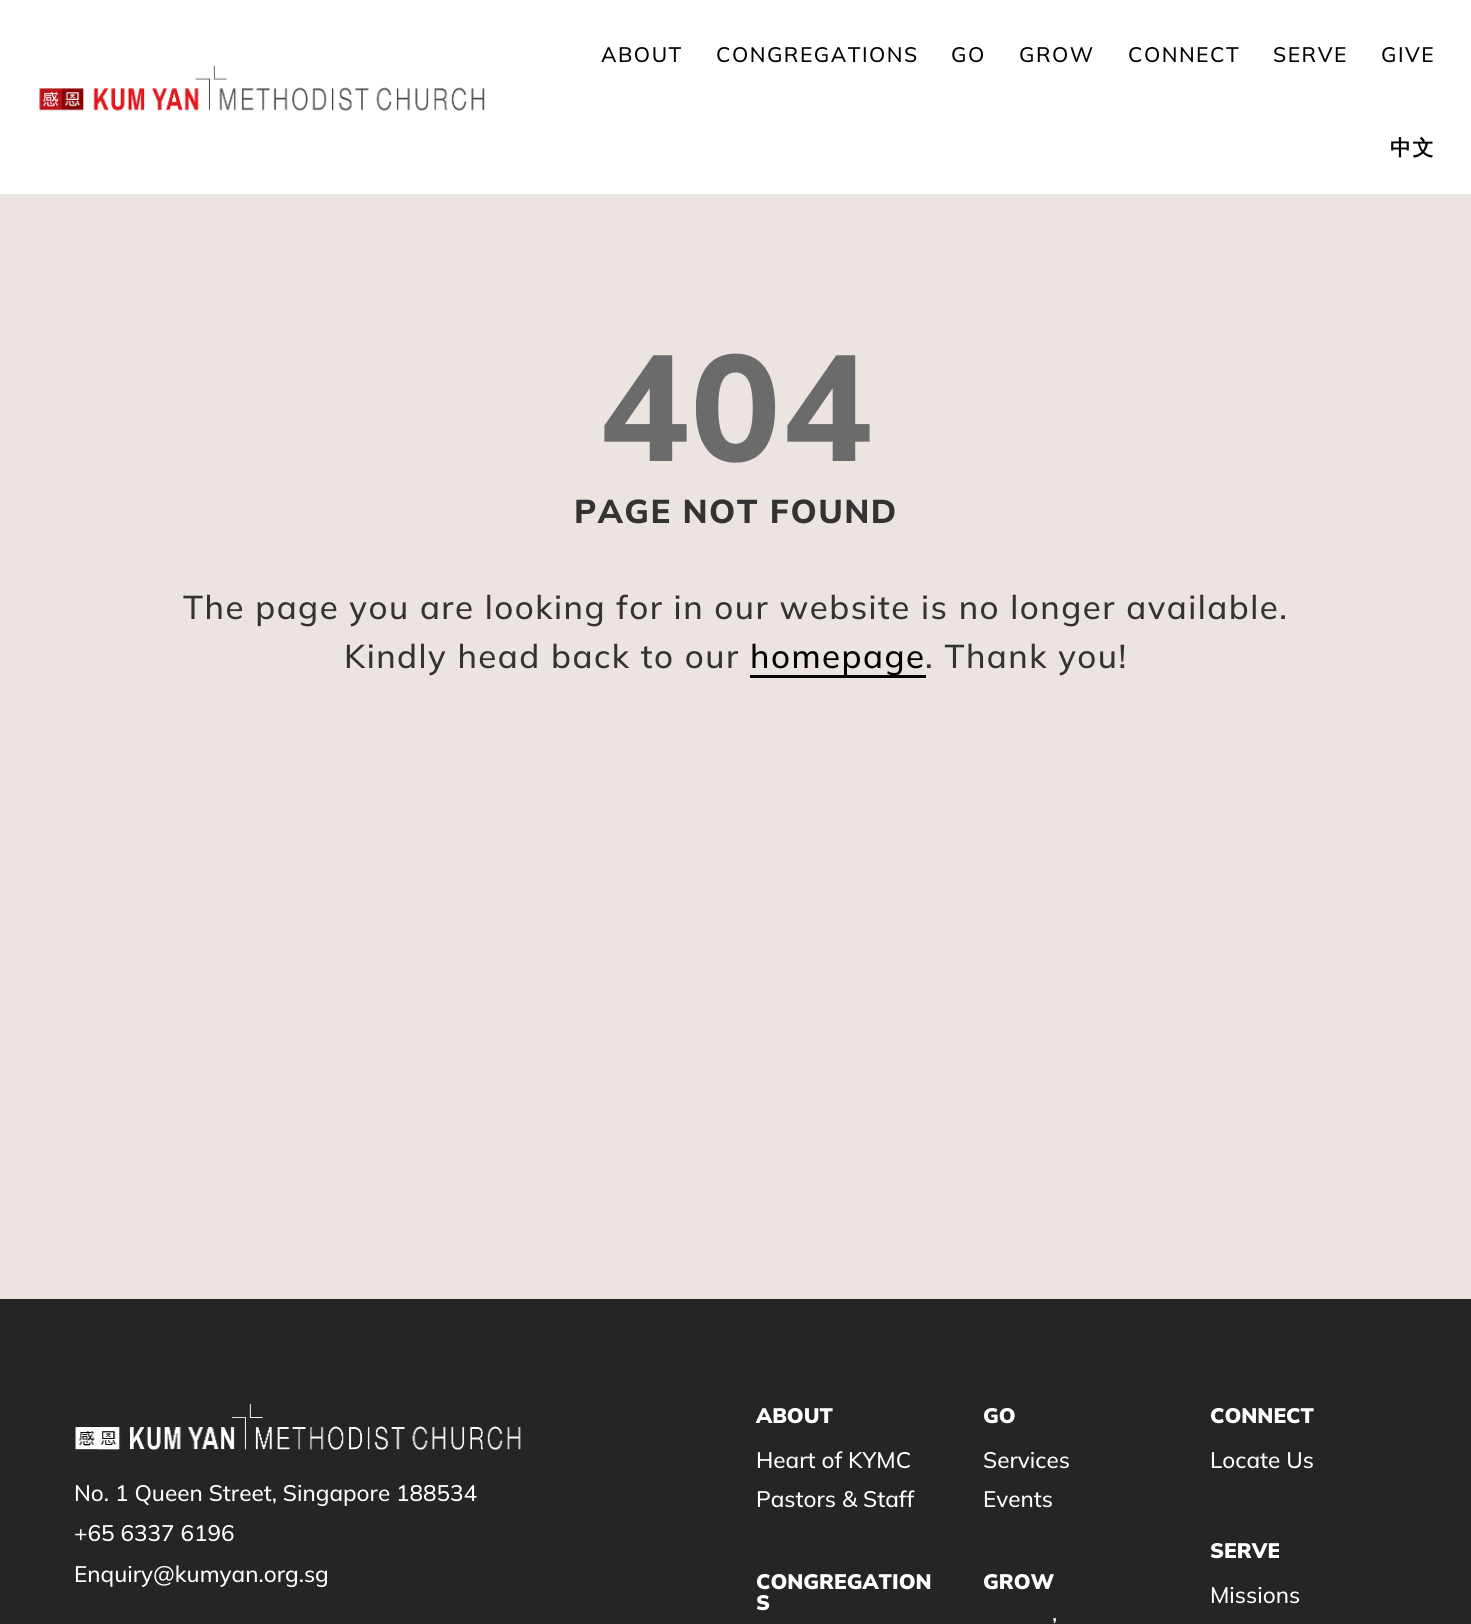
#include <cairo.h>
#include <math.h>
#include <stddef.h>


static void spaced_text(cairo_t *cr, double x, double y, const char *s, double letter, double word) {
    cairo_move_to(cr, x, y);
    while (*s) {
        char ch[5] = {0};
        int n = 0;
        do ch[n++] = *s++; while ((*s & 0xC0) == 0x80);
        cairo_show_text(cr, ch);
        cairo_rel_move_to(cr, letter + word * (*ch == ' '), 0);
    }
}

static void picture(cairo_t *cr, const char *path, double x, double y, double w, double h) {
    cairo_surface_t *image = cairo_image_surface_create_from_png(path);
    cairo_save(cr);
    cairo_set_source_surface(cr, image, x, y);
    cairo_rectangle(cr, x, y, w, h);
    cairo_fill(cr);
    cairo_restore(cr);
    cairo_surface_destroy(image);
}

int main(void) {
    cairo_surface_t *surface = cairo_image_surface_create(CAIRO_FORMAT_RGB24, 1471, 1624);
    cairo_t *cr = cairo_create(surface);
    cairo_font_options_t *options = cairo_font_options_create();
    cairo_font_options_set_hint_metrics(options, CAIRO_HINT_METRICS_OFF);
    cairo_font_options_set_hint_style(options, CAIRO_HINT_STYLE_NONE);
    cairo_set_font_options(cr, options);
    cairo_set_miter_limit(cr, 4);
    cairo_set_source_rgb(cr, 0.918, 0.894, 0.882);
    cairo_paint(cr);
    cairo_set_source_rgb(cr, 1, 1, 1);
    cairo_rectangle(cr, 0, 0, 1471, 194);
    cairo_fill(cr);
    picture(cr, "img1.png", 39, 66, 446, 45);
    cairo_select_font_face(cr, "Mulish Medium", CAIRO_FONT_SLANT_NORMAL, CAIRO_FONT_WEIGHT_NORMAL);
    cairo_set_font_size(cr, 21);
    cairo_set_source_rgb(cr, 0, 0, 0);
    spaced_text(cr, 601, 62, "ABOUT", 1.5, 0);
    spaced_text(cr, 716, 62, "CONGREGATIONS", 1.5, 0);
    spaced_text(cr, 951, 62, "GO", 1.5, 0);
    spaced_text(cr, 1019, 62, "GROW", 1.5, 0);
    spaced_text(cr, 1128, 62, "CONNECT", 1.5, 0);
    spaced_text(cr, 1273, 62, "SERVE", 1.5, 0);
    spaced_text(cr, 1381, 62, "GIVE", 1.5, 0);
    cairo_select_font_face(cr, "WenQuanYi Zen Hei", CAIRO_FONT_SLANT_NORMAL, CAIRO_FONT_WEIGHT_BOLD);
    spaced_text(cr, 1390, 155, "中文", 1.5, 0);
    cairo_select_font_face(cr, "Mulish ExtraBold", CAIRO_FONT_SLANT_NORMAL, CAIRO_FONT_WEIGHT_NORMAL);
    cairo_set_font_size(cr, 150);
    cairo_set_source_rgb(cr, 0.42, 0.42, 0.42);
    spaced_text(cr, 599, 461, "404", 1.5, 0);
    cairo_set_font_size(cr, 33);
    cairo_set_source_rgb(cr, 0.2, 0.2, 0.2);
    spaced_text(cr, 574, 523, "PAGE NOT FOUND", 1.5, 0);
    cairo_select_font_face(cr, "Mulish Medium", CAIRO_FONT_SLANT_NORMAL, CAIRO_FONT_WEIGHT_NORMAL);
    spaced_text(cr, 183, 619, "The page you are looking for in our website is no longer available.", 1.5, 0);
    spaced_text(cr, 344, 668, "Kindly head back to our", 1.5, 0);
    cairo_set_source_rgb(cr, 0, 0, 0);
    spaced_text(cr, 750, 668, "homepage", 1.5, 0);
    cairo_rectangle(cr, 750, 675, 176, 3);
    cairo_fill(cr);
    cairo_set_source_rgb(cr, 0.2, 0.2, 0.2);
    spaced_text(cr, 925, 668, ". Thank you!", 1.5, 0);
    cairo_set_source_rgb(cr, 0.145, 0.145, 0.145);
    cairo_rectangle(cr, 0, 1299, 1471, 325);
    cairo_fill(cr);
    picture(cr, "img2.png", 75, 1404, 446, 46);
    cairo_set_font_size(cr, 22.5);
    cairo_set_source_rgb(cr, 1, 1, 1);
    cairo_move_to(cr, 74, 1501);
    cairo_show_text(cr, "No. 1 Queen Street, Singapore 188534");
    cairo_move_to(cr, 74, 1541);
    cairo_show_text(cr, "+65 6337 6196");
    cairo_move_to(cr, 74, 1582);
    cairo_show_text(cr, "Enquiry@kumyan.org.sg");
    cairo_select_font_face(cr, "Mulish Black", CAIRO_FONT_SLANT_NORMAL, CAIRO_FONT_WEIGHT_NORMAL);
    cairo_set_font_size(cr, 21);
    cairo_move_to(cr, 756, 1423);
    cairo_show_text(cr, "ABOUT");
    cairo_select_font_face(cr, "Mulish Medium", CAIRO_FONT_SLANT_NORMAL, CAIRO_FONT_WEIGHT_NORMAL);
    cairo_set_font_size(cr, 22.5);
    cairo_move_to(cr, 756, 1468);
    cairo_show_text(cr, "Heart of KYMC");
    cairo_move_to(cr, 756, 1507);
    cairo_show_text(cr, "Pastors & Staff");
    cairo_select_font_face(cr, "Mulish Black", CAIRO_FONT_SLANT_NORMAL, CAIRO_FONT_WEIGHT_NORMAL);
    cairo_set_font_size(cr, 21);
    cairo_move_to(cr, 756, 1589);
    cairo_show_text(cr, "CONGREGATION");
    cairo_move_to(cr, 756, 1610);
    cairo_show_text(cr, "S");
    cairo_move_to(cr, 983, 1423);
    cairo_show_text(cr, "GO");
    cairo_select_font_face(cr, "Mulish Medium", CAIRO_FONT_SLANT_NORMAL, CAIRO_FONT_WEIGHT_NORMAL);
    cairo_set_font_size(cr, 22.5);
    cairo_move_to(cr, 983, 1468);
    cairo_show_text(cr, "Services");
    cairo_move_to(cr, 983, 1507);
    cairo_show_text(cr, "Events");
    cairo_select_font_face(cr, "Mulish Black", CAIRO_FONT_SLANT_NORMAL, CAIRO_FONT_WEIGHT_NORMAL);
    cairo_set_font_size(cr, 21);
    cairo_move_to(cr, 983, 1589);
    cairo_show_text(cr, "GROW");
    cairo_select_font_face(cr, "Mulish Medium", CAIRO_FONT_SLANT_NORMAL, CAIRO_FONT_WEIGHT_NORMAL);
    cairo_set_font_size(cr, 22.5);
    cairo_move_to(cr, 1052, 1634);
    cairo_show_text(cr, "’");
    cairo_select_font_face(cr, "Mulish Black", CAIRO_FONT_SLANT_NORMAL, CAIRO_FONT_WEIGHT_NORMAL);
    cairo_set_font_size(cr, 21);
    cairo_move_to(cr, 1210, 1423);
    cairo_show_text(cr, "CONNECT");
    cairo_select_font_face(cr, "Mulish Medium", CAIRO_FONT_SLANT_NORMAL, CAIRO_FONT_WEIGHT_NORMAL);
    cairo_set_font_size(cr, 22.5);
    cairo_move_to(cr, 1210, 1468);
    cairo_show_text(cr, "Locate Us");
    cairo_select_font_face(cr, "Mulish Black", CAIRO_FONT_SLANT_NORMAL, CAIRO_FONT_WEIGHT_NORMAL);
    cairo_set_font_size(cr, 21);
    cairo_move_to(cr, 1210, 1558);
    cairo_show_text(cr, "SERVE");
    cairo_select_font_face(cr, "Mulish Medium", CAIRO_FONT_SLANT_NORMAL, CAIRO_FONT_WEIGHT_NORMAL);
    cairo_set_font_size(cr, 22.5);
    cairo_move_to(cr, 1210, 1603);
    cairo_show_text(cr, "Missions");
    cairo_surface_write_to_png(surface, "page.png");
    cairo_font_options_destroy(options);
    cairo_destroy(cr);
    cairo_surface_destroy(surface);
    return 0;
}
